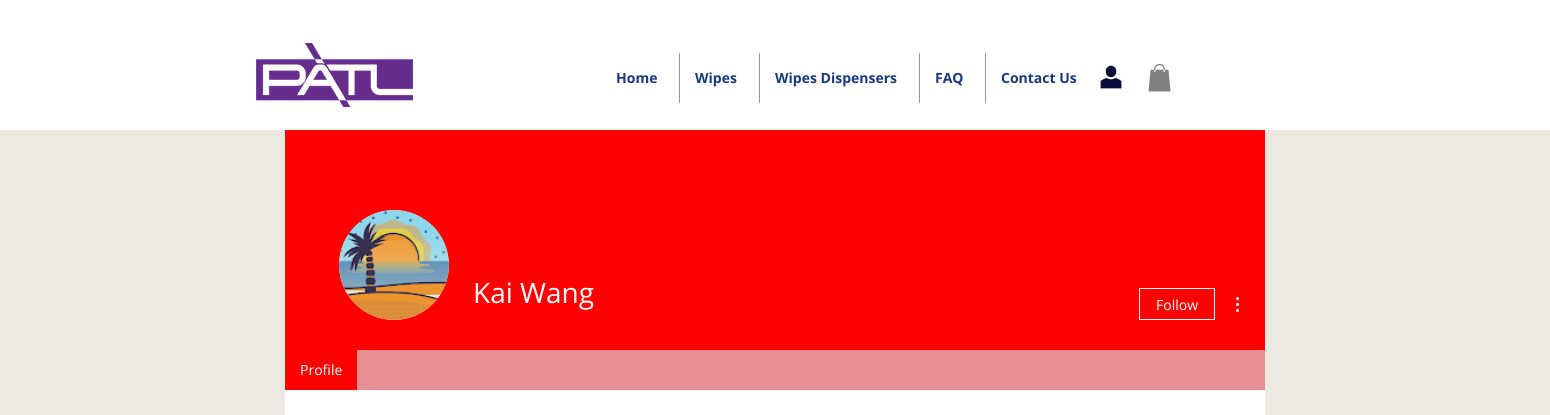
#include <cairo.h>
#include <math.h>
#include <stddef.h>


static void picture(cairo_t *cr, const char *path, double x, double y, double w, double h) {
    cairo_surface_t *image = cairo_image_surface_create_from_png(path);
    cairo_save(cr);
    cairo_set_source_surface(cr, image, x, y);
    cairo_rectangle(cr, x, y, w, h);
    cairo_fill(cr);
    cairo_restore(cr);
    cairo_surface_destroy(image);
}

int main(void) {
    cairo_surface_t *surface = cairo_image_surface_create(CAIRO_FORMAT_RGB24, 1550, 415);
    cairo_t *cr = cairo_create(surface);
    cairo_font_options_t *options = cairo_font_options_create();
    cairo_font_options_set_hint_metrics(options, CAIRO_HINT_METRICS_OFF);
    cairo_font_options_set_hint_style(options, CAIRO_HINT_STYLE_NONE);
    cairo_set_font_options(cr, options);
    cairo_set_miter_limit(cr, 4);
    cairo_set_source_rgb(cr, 0.929, 0.914, 0.882);
    cairo_paint(cr);
    cairo_set_source_rgb(cr, 1, 1, 1);
    cairo_rectangle(cr, 0, 0, 1550, 10);
    cairo_fill(cr);
    cairo_rectangle(cr, 0, 10, 1550, 120);
    cairo_fill(cr);
    picture(cr, "img1.png", 256, 43, 157, 64);
    cairo_select_font_face(cr, "Open Sans", CAIRO_FONT_SLANT_NORMAL, CAIRO_FONT_WEIGHT_BOLD);
    cairo_set_font_size(cr, 14);
    cairo_set_source_rgb(cr, 0.094, 0.224, 0.506);
    cairo_move_to(cr, 616, 83);
    cairo_show_text(cr, "Home");
    cairo_set_source_rgb(cr, 0.6, 0.576, 0.557);
    cairo_rectangle(cr, 679, 53, 1, 50);
    cairo_fill(cr);
    cairo_set_source_rgb(cr, 0.094, 0.224, 0.506);
    cairo_move_to(cr, 695, 83);
    cairo_show_text(cr, "Wipes");
    cairo_set_source_rgb(cr, 0.6, 0.576, 0.557);
    cairo_rectangle(cr, 759, 53, 1, 50);
    cairo_fill(cr);
    cairo_set_source_rgb(cr, 0.094, 0.224, 0.506);
    cairo_move_to(cr, 775, 83);
    cairo_show_text(cr, "Wipes Dispensers");
    cairo_set_source_rgb(cr, 0.6, 0.576, 0.557);
    cairo_rectangle(cr, 919, 53, 1, 50);
    cairo_fill(cr);
    cairo_set_source_rgb(cr, 0.094, 0.224, 0.506);
    cairo_move_to(cr, 935, 83);
    cairo_show_text(cr, "FAQ");
    cairo_set_source_rgb(cr, 0.6, 0.576, 0.557);
    cairo_rectangle(cr, 985, 53, 1, 50);
    cairo_fill(cr);
    cairo_set_source_rgb(cr, 0.094, 0.224, 0.506);
    cairo_move_to(cr, 1001, 83);
    cairo_show_text(cr, "Contact Us");
    picture(cr, "img2.png", 1100, 65, 22, 24);
    picture(cr, "img3.png", 1148, 64, 23, 28);
    cairo_set_source_rgb(cr, 1, 0, 0);
    cairo_rectangle(cr, 285, 130, 980, 220);
    cairo_fill(cr);
    cairo_set_source_rgb(cr, 0.847, 0.847, 0.847);
    cairo_arc(cr, 394, 265, 55, 0, 2 * M_PI);
    cairo_fill(cr);
    picture(cr, "img4.png", 339, 210, 110, 110);
    cairo_select_font_face(cr, "Open Sans", CAIRO_FONT_SLANT_NORMAL, CAIRO_FONT_WEIGHT_NORMAL);
    cairo_set_font_size(cr, 28);
    cairo_set_source_rgb(cr, 1, 1, 1);
    cairo_move_to(cr, 473, 303);
    cairo_show_text(cr, "Kai Wang");
    cairo_rectangle(cr, 1139.5, 288.5, 75, 31);
    cairo_set_line_width(cr, 1);
    cairo_stroke(cr);
    cairo_set_font_size(cr, 14);
    cairo_move_to(cr, 1156, 310);
    cairo_show_text(cr, "Follow");
    picture(cr, "img5.png", 1236, 297, 3, 15);
    cairo_set_source_rgb(cr, 0.902, 0.557, 0.58);
    cairo_rectangle(cr, 357, 350, 908, 40);
    cairo_fill(cr);
    cairo_set_source_rgb(cr, 1, 0, 0);
    cairo_rectangle(cr, 285, 350, 72, 40);
    cairo_fill(cr);
    cairo_set_source_rgb(cr, 1, 1, 1);
    cairo_move_to(cr, 300, 375);
    cairo_show_text(cr, "Profile");
    cairo_rectangle(cr, 285, 390, 980, 25);
    cairo_fill(cr);
    cairo_surface_write_to_png(surface, "page.png");
    cairo_font_options_destroy(options);
    cairo_destroy(cr);
    cairo_surface_destroy(surface);
    return 0;
}
